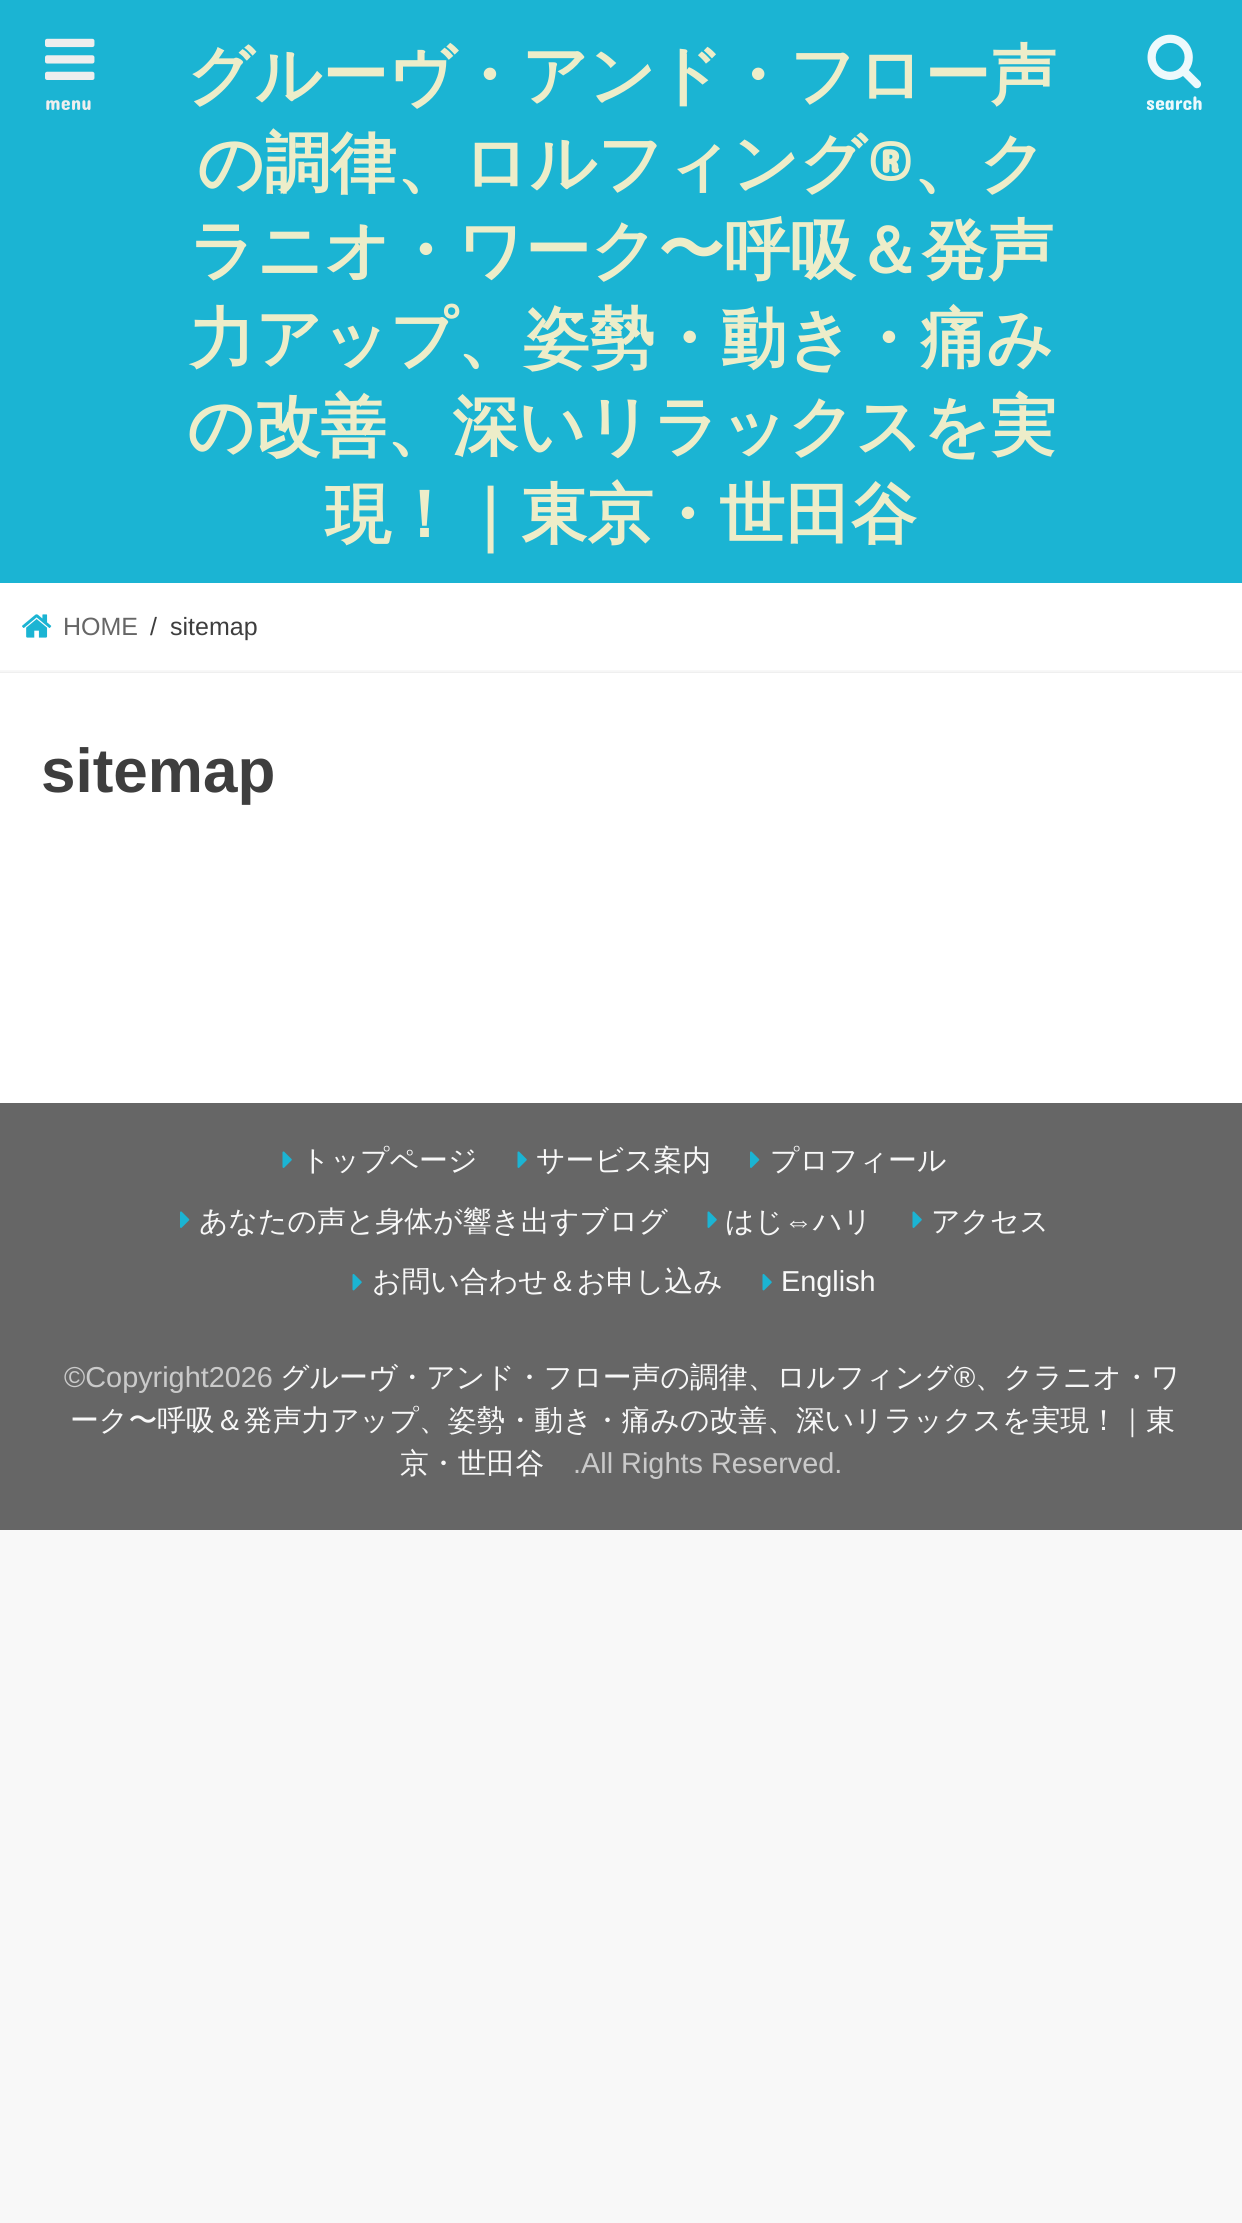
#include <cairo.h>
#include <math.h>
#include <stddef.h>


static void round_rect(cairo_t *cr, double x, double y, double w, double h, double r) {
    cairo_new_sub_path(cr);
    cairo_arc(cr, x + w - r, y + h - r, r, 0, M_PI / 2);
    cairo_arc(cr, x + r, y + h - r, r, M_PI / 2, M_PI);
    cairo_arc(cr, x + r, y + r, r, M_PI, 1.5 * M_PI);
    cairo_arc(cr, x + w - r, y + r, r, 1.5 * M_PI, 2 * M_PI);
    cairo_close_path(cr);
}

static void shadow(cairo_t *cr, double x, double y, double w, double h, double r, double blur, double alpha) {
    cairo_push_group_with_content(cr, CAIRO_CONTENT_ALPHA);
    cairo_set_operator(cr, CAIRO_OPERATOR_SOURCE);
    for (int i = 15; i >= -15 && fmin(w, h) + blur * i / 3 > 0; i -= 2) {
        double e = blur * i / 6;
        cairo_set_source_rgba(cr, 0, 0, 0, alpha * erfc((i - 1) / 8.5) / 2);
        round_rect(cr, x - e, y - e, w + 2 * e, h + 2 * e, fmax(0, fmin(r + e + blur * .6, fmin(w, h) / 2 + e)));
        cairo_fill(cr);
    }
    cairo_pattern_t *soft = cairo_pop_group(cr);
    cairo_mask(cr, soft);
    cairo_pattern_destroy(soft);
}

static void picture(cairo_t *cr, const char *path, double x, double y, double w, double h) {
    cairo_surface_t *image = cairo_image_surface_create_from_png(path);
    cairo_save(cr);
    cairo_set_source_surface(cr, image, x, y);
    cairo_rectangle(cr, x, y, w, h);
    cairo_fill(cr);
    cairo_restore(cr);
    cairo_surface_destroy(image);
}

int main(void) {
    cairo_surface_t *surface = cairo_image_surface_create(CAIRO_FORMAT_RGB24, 1242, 2223);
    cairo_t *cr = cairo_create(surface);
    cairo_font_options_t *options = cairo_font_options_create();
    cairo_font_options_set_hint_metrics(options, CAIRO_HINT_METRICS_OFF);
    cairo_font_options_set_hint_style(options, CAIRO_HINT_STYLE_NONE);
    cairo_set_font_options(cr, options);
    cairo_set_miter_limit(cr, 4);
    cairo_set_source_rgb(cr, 0.969, 0.969, 0.969);
    cairo_paint(cr);
    cairo_set_source_rgb(cr, 0.106, 0.706, 0.827);
    cairo_rectangle(cr, 0, 0, 1242, 583);
    cairo_fill(cr);
    picture(cr, "img1.png", 45, 38, 50, 42);
    cairo_select_font_face(cr, "Concert One", CAIRO_FONT_SLANT_NORMAL, CAIRO_FONT_WEIGHT_NORMAL);
    cairo_set_font_size(cr, 20);
    cairo_set_source_rgb(cr, 0.933, 0.933, 0.933);
    cairo_move_to(cr, 45, 110);
    cairo_show_text(cr, "menu");
    cairo_select_font_face(cr, "WenQuanYi Zen Hei", CAIRO_FONT_SLANT_NORMAL, CAIRO_FONT_WEIGHT_BOLD);
    cairo_set_font_size(cr, 65.9);
    cairo_set_source_rgb(cr, 0.929, 0.929, 0.788);
    cairo_move_to(cr, 187, 98);
    cairo_show_text(cr, "グルーヴ・アンド・フロー声");
    cairo_move_to(cr, 197, 186);
    cairo_show_text(cr, "の調律、ロルフィング");
    cairo_select_font_face(cr, "Concert One", CAIRO_FONT_SLANT_NORMAL, CAIRO_FONT_WEIGHT_BOLD);
    cairo_move_to(cr, 867, 186);
    cairo_show_text(cr, "®");
    cairo_select_font_face(cr, "WenQuanYi Zen Hei", CAIRO_FONT_SLANT_NORMAL, CAIRO_FONT_WEIGHT_BOLD);
    cairo_move_to(cr, 913, 186);
    cairo_show_text(cr, "、ク");
    cairo_move_to(cr, 189, 273);
    cairo_show_text(cr, "ラニオ・ワーク〜呼吸＆発声");
    cairo_move_to(cr, 189, 361);
    cairo_show_text(cr, "力アップ、姿勢・動き・痛み");
    cairo_move_to(cr, 187, 449);
    cairo_show_text(cr, "の改善、深いリラックスを実");
    cairo_move_to(cr, 325, 537);
    cairo_show_text(cr, "現！｜東京・世田谷");
    picture(cr, "img2.png", 1147, 34, 55, 55);
    cairo_select_font_face(cr, "Concert One", CAIRO_FONT_SLANT_NORMAL, CAIRO_FONT_WEIGHT_NORMAL);
    cairo_set_font_size(cr, 20);
    cairo_set_source_rgb(cr, 0.929, 0.976, 0.988);
    cairo_move_to(cr, 1146, 110);
    cairo_show_text(cr, "search");
    cairo_set_source_rgb(cr, 1, 1, 1);
    cairo_rectangle(cr, 0, 583, 1242, 87);
    cairo_fill(cr);
    picture(cr, "img3.png", 22, 614, 30, 24);
    cairo_select_font_face(cr, "Liberation Sans", CAIRO_FONT_SLANT_NORMAL, CAIRO_FONT_WEIGHT_NORMAL);
    cairo_set_font_size(cr, 25);
    cairo_set_source_rgb(cr, 0.4, 0.4, 0.4);
    cairo_move_to(cr, 63, 635);
    cairo_show_text(cr, "HOME");
    cairo_set_source_rgb(cr, 0.243, 0.243, 0.243);
    cairo_move_to(cr, 150, 635);
    cairo_show_text(cr, "/");
    cairo_move_to(cr, 170, 635);
    cairo_show_text(cr, "sitemap");
    cairo_set_source_rgb(cr, 0.867, 0.867, 0.867);
    shadow(cr, 0, 673, 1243, 430, 0, 1, 1);
    cairo_set_source_rgb(cr, 1, 1, 1);
    cairo_rectangle(cr, 0, 673, 1242, 430);
    cairo_fill(cr);
    cairo_select_font_face(cr, "Liberation Sans", CAIRO_FONT_SLANT_NORMAL, CAIRO_FONT_WEIGHT_BOLD);
    cairo_set_font_size(cr, 62);
    cairo_set_source_rgb(cr, 0.243, 0.243, 0.243);
    cairo_move_to(cr, 41, 792);
    cairo_show_text(cr, "sitemap");
    cairo_set_source_rgb(cr, 0.4, 0.4, 0.4);
    cairo_rectangle(cr, 0, 1103, 1242, 427);
    cairo_fill(cr);
    picture(cr, "img4.png", 282, 1151, 10, 17);
    cairo_select_font_face(cr, "WenQuanYi Zen Hei Medium", CAIRO_FONT_SLANT_NORMAL, CAIRO_FONT_WEIGHT_NORMAL);
    cairo_set_font_size(cr, 28.85);
    cairo_set_source_rgb(cr, 0.969, 0.969, 0.969);
    cairo_move_to(cr, 301, 1170);
    cairo_show_text(cr, "トップページ");
    picture(cr, "img4.png", 517, 1151, 10, 17);
    cairo_move_to(cr, 536, 1170);
    cairo_show_text(cr, "サービス案内");
    picture(cr, "img5.png", 750, 1151, 10, 17);
    cairo_move_to(cr, 770, 1170);
    cairo_show_text(cr, "プロフィール");
    picture(cr, "img5.png", 180, 1211, 10, 17);
    cairo_move_to(cr, 199, 1231);
    cairo_show_text(cr, "あなたの声と身体が響き出すブログ");
    picture(cr, "img4.png", 707, 1211, 10, 17);
    cairo_move_to(cr, 725, 1231);
    cairo_show_text(cr, "はじ");
    cairo_select_font_face(cr, "Liberation Sans", CAIRO_FONT_SLANT_NORMAL, CAIRO_FONT_WEIGHT_NORMAL);
    cairo_move_to(cr, 784, 1231);
    cairo_show_text(cr, "⇔");
    cairo_select_font_face(cr, "WenQuanYi Zen Hei Medium", CAIRO_FONT_SLANT_NORMAL, CAIRO_FONT_WEIGHT_NORMAL);
    cairo_move_to(cr, 813, 1231);
    cairo_show_text(cr, "ハリ");
    picture(cr, "img4.png", 912, 1211, 10, 17);
    cairo_move_to(cr, 931, 1231);
    cairo_show_text(cr, "アクセス");
    picture(cr, "img6.png", 352, 1274, 10, 17);
    cairo_move_to(cr, 372, 1291);
    cairo_show_text(cr, "お問い合わせ＆お申し込み");
    picture(cr, "img6.png", 762, 1274, 10, 17);
    cairo_select_font_face(cr, "Liberation Sans", CAIRO_FONT_SLANT_NORMAL, CAIRO_FONT_WEIGHT_NORMAL);
    cairo_move_to(cr, 781, 1291);
    cairo_show_text(cr, "English");
    cairo_set_source_rgb(cr, 0.792, 0.792, 0.792);
    cairo_move_to(cr, 64, 1387);
    cairo_show_text(cr, "©Copyright2026");
    cairo_select_font_face(cr, "WenQuanYi Zen Hei Medium", CAIRO_FONT_SLANT_NORMAL, CAIRO_FONT_WEIGHT_NORMAL);
    cairo_set_source_rgb(cr, 0.969, 0.969, 0.969);
    cairo_move_to(cr, 280, 1387);
    cairo_show_text(cr, "グルーヴ・アンド・フロー声の調律、ロルフィング");
    cairo_select_font_face(cr, "Liberation Sans", CAIRO_FONT_SLANT_NORMAL, CAIRO_FONT_WEIGHT_NORMAL);
    cairo_move_to(cr, 954, 1387);
    cairo_show_text(cr, "®");
    cairo_select_font_face(cr, "WenQuanYi Zen Hei Medium", CAIRO_FONT_SLANT_NORMAL, CAIRO_FONT_WEIGHT_NORMAL);
    cairo_move_to(cr, 975, 1387);
    cairo_show_text(cr, "、クラニオ・ワ");
    cairo_move_to(cr, 70, 1430);
    cairo_show_text(cr, "ーク〜呼吸＆発声力アップ、姿勢・動き・痛みの改善、深いリラックスを実現！｜東");
    cairo_move_to(cr, 400, 1473);
    cairo_show_text(cr, "京・世田谷");
    cairo_select_font_face(cr, "Liberation Sans", CAIRO_FONT_SLANT_NORMAL, CAIRO_FONT_WEIGHT_NORMAL);
    cairo_set_source_rgb(cr, 0.792, 0.792, 0.792);
    cairo_move_to(cr, 573, 1473);
    cairo_show_text(cr, ".All Rights Reserved.");
    cairo_surface_write_to_png(surface, "page.png");
    cairo_font_options_destroy(options);
    cairo_destroy(cr);
    cairo_surface_destroy(surface);
    return 0;
}
